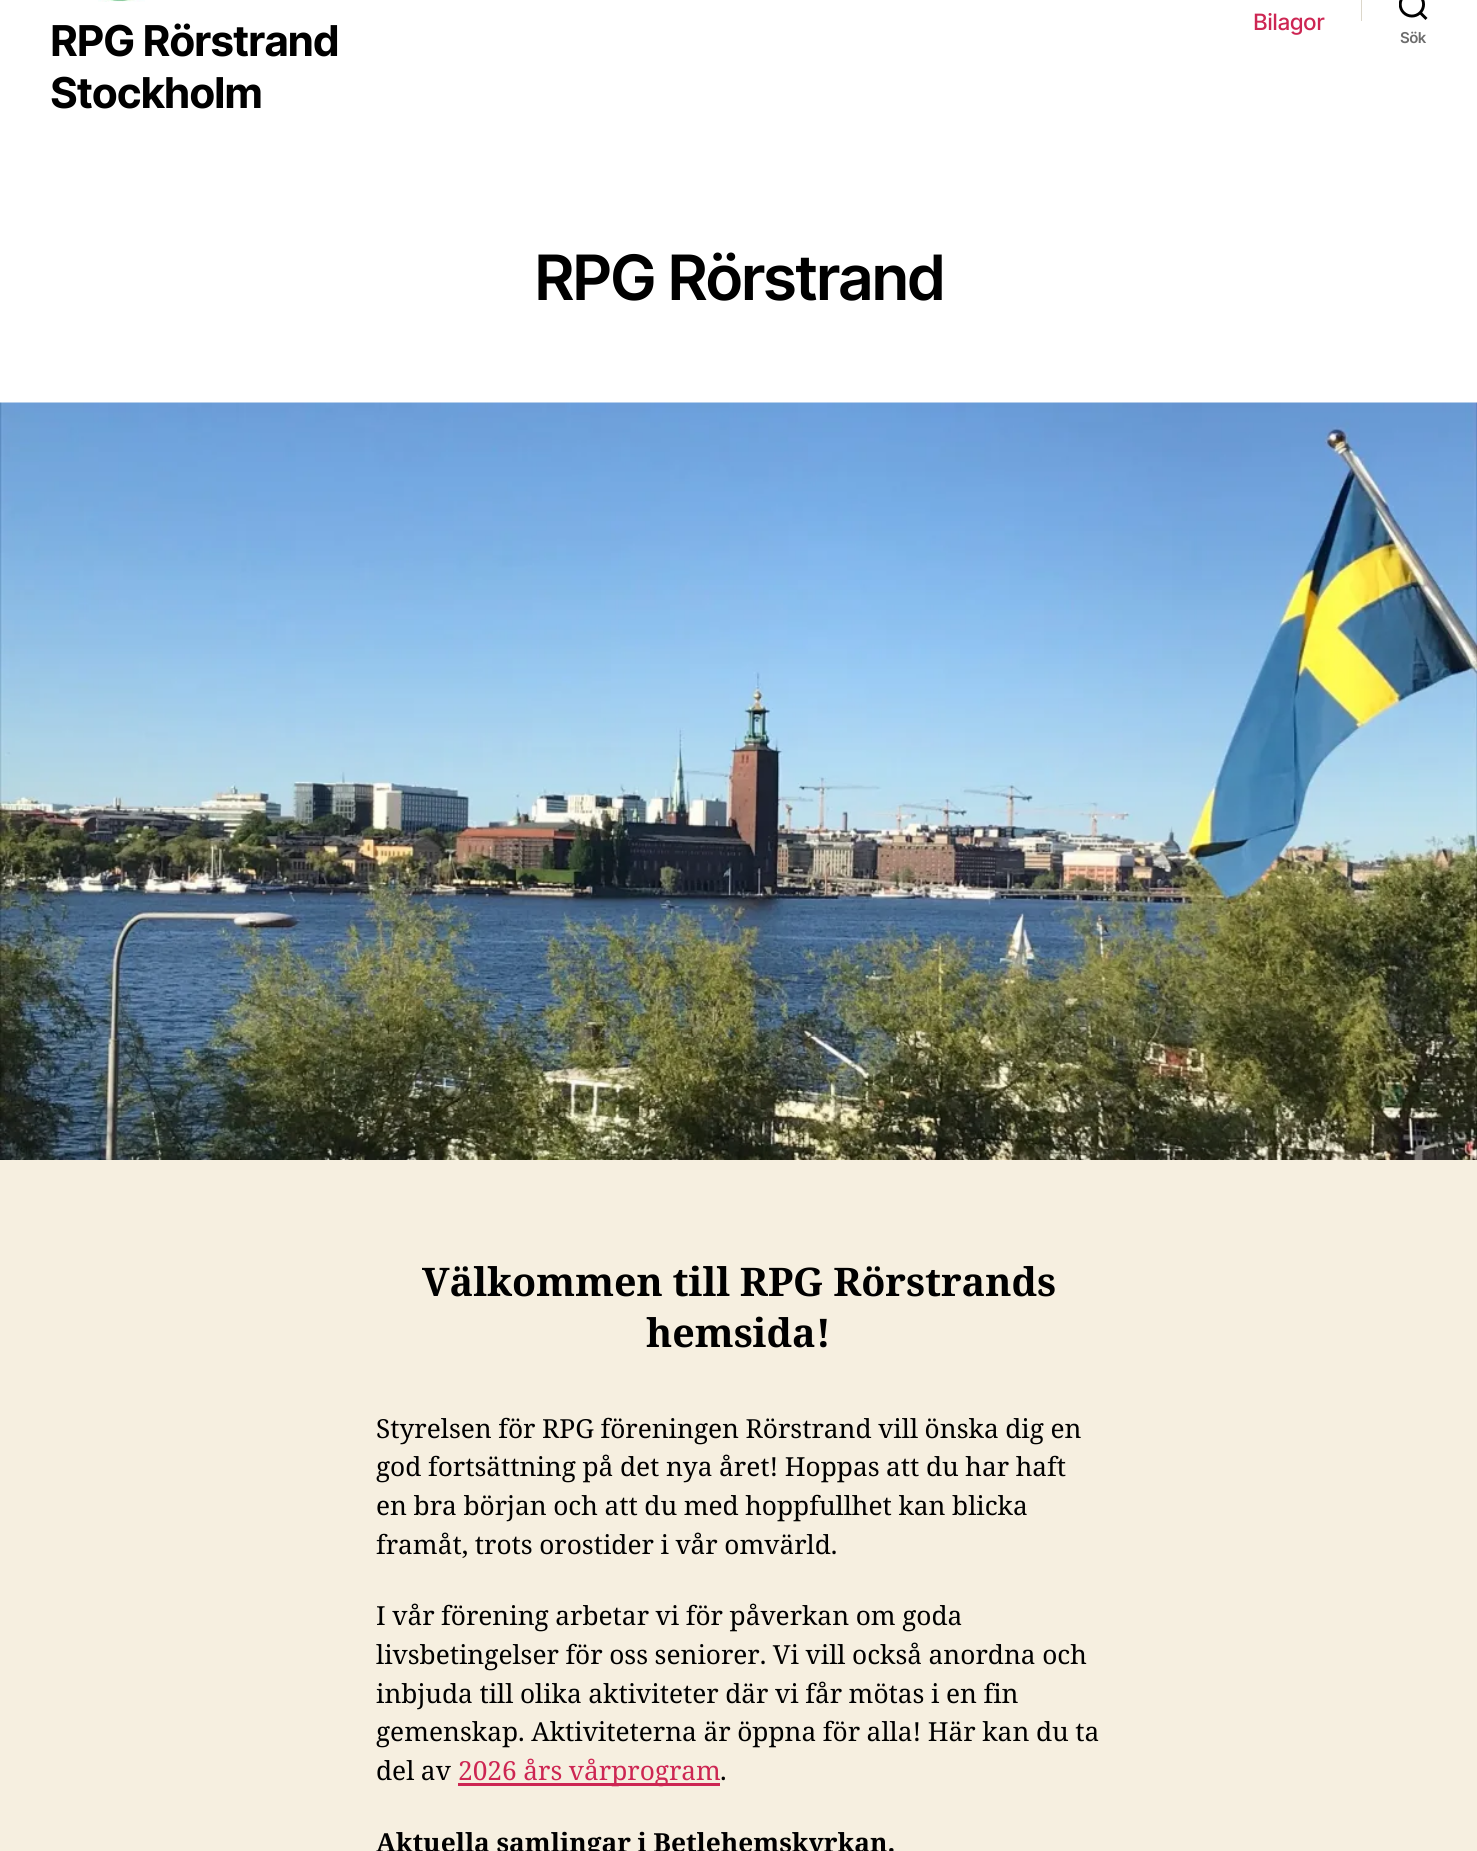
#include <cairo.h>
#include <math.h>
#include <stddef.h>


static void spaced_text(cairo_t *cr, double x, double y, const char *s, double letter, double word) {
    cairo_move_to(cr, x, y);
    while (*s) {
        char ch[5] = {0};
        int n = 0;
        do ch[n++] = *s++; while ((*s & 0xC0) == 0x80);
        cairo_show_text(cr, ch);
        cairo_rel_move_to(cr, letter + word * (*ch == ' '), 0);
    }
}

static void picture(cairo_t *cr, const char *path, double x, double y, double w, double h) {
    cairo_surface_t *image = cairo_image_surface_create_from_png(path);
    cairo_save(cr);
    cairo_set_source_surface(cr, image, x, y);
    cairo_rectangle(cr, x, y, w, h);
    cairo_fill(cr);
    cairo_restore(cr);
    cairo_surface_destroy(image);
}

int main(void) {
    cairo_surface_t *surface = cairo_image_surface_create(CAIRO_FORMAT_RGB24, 1477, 1851);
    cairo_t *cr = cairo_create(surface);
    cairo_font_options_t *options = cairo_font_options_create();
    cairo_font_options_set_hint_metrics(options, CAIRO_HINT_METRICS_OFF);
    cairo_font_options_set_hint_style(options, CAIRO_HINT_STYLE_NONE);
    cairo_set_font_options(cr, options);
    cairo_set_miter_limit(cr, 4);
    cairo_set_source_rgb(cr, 0.961, 0.937, 0.878);
    cairo_paint(cr);
    cairo_set_source_rgb(cr, 1, 1, 1);
    cairo_rectangle(cr, 0, 0, 1477, 403);
    cairo_fill(cr);
    picture(cr, "img1.png", 98, 0, 47, 2);
    cairo_select_font_face(cr, "Inter", CAIRO_FONT_SLANT_NORMAL, CAIRO_FONT_WEIGHT_BOLD);
    cairo_set_font_size(cr, 42.5);
    cairo_set_source_rgb(cr, 0, 0, 0);
    spaced_text(cr, 50, 56, "RPG Rörstrand", -1.25, 0);
    spaced_text(cr, 50, 108, "Stockholm", -1.25, 0);
    cairo_select_font_face(cr, "Inter Medium", CAIRO_FONT_SLANT_NORMAL, CAIRO_FONT_WEIGHT_NORMAL);
    cairo_set_font_size(cr, 22.5);
    cairo_set_source_rgb(cr, 0.804, 0.149, 0.325);
    spaced_text(cr, 1253, 30, "Bilagor", -0.5, 0);
    cairo_set_source_rgb(cr, 0.863, 0.843, 0.792);
    cairo_rectangle(cr, 1361, 0, 1, 21);
    cairo_fill(cr);
    picture(cr, "img2.png", 1399, 0, 29, 20);
    cairo_select_font_face(cr, "Inter SemiBold", CAIRO_FONT_SLANT_NORMAL, CAIRO_FONT_WEIGHT_NORMAL);
    cairo_set_font_size(cr, 15);
    cairo_set_source_rgb(cr, 0.427, 0.427, 0.427);
    spaced_text(cr, 1400, 43, "Sök", -0.5, 0);
    cairo_set_font_size(cr, 62.5);
    cairo_set_source_rgb(cr, 0, 0, 0);
    spaced_text(cr, 534, 300, "RPG Rörstrand", -2.6, 0);
    picture(cr, "img3.png", 0, 402, 1477, 758);
    cairo_select_font_face(cr, "Noto Serif", CAIRO_FONT_SLANT_NORMAL, CAIRO_FONT_WEIGHT_BOLD);
    cairo_set_font_size(cr, 39.4);
    spaced_text(cr, 422, 1296, "Välkommen till RPG Rörstrands", 0, -0.5);
    cairo_move_to(cr, 646, 1347);
    cairo_show_text(cr, "hemsida!");
    cairo_select_font_face(cr, "Noto Serif", CAIRO_FONT_SLANT_NORMAL, CAIRO_FONT_WEIGHT_NORMAL);
    cairo_set_font_size(cr, 26.25);
    spaced_text(cr, 376, 1438, "Styrelsen för RPG föreningen Rörstrand vill önska dig en", 0, -0.25);
    spaced_text(cr, 376, 1476, "god fortsättning på det nya året! Hoppas att du har haft", 0, -0.25);
    spaced_text(cr, 376, 1515, "en bra början och att du med hoppfullhet kan blicka", 0, -0.25);
    spaced_text(cr, 376, 1554, "framåt, trots orostider i vår omvärld.", 0, -0.25);
    spaced_text(cr, 376, 1625, "I vår förening arbetar vi för påverkan om goda", 0, -0.25);
    spaced_text(cr, 376, 1664, "livsbetingelser för oss seniorer. Vi vill också anordna och", 0, -0.25);
    spaced_text(cr, 376, 1703, "inbjuda till olika aktiviteter där vi får mötas i en fin", 0, -0.25);
    spaced_text(cr, 376, 1741, "gemenskap. Aktiviteterna är öppna för alla! Här kan du ta", 0, -0.25);
    spaced_text(cr, 376, 1780, "del av", 0, -0.25);
    cairo_set_source_rgb(cr, 0.804, 0.149, 0.325);
    cairo_rectangle(cr, 458, 1783, 262, 3);
    cairo_fill(cr);
    spaced_text(cr, 458, 1780, "2026 års vårprogram", 0, -0.25);
    cairo_set_source_rgb(cr, 0, 0, 0);
    cairo_move_to(cr, 720, 1780);
    cairo_show_text(cr, ".");
    cairo_select_font_face(cr, "Noto Serif", CAIRO_FONT_SLANT_NORMAL, CAIRO_FONT_WEIGHT_BOLD);
    spaced_text(cr, 376, 1852, "Aktuella samlingar i Betlehemskyrkan.", 0, -0.25);
    cairo_surface_write_to_png(surface, "page.png");
    cairo_font_options_destroy(options);
    cairo_destroy(cr);
    cairo_surface_destroy(surface);
    return 0;
}
